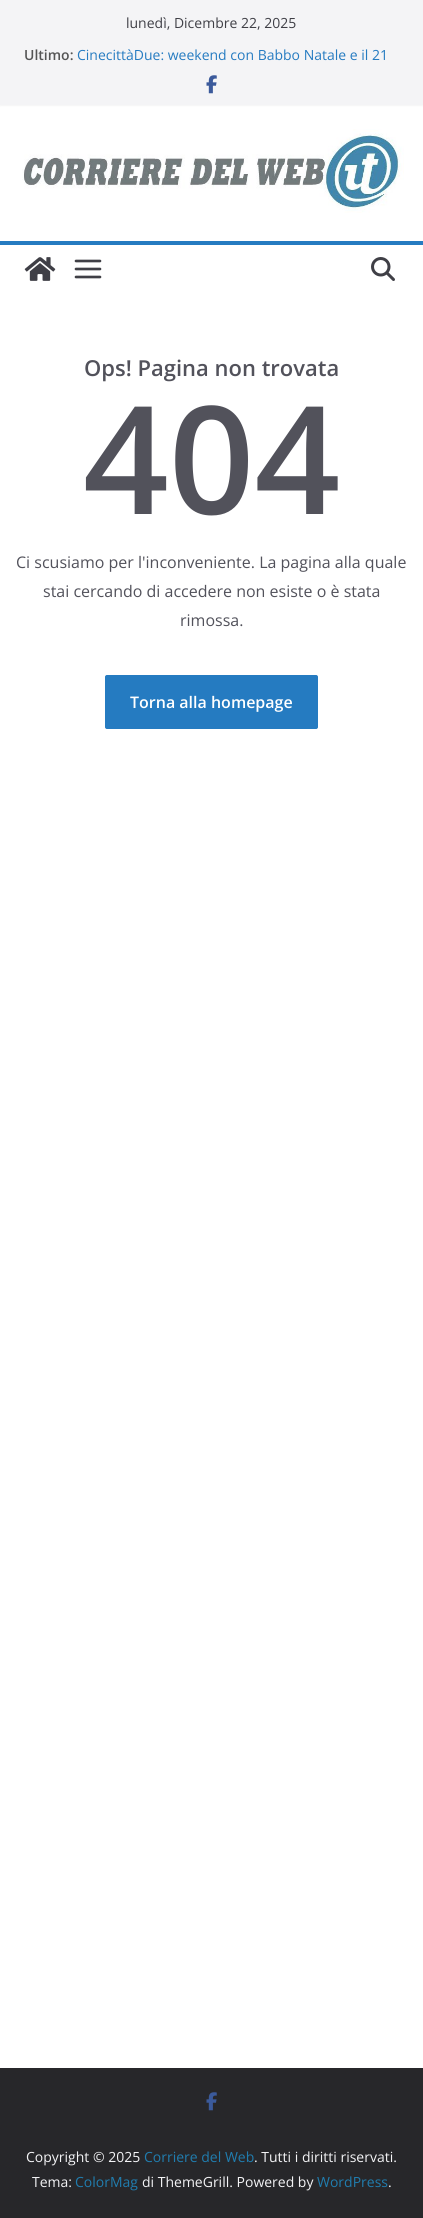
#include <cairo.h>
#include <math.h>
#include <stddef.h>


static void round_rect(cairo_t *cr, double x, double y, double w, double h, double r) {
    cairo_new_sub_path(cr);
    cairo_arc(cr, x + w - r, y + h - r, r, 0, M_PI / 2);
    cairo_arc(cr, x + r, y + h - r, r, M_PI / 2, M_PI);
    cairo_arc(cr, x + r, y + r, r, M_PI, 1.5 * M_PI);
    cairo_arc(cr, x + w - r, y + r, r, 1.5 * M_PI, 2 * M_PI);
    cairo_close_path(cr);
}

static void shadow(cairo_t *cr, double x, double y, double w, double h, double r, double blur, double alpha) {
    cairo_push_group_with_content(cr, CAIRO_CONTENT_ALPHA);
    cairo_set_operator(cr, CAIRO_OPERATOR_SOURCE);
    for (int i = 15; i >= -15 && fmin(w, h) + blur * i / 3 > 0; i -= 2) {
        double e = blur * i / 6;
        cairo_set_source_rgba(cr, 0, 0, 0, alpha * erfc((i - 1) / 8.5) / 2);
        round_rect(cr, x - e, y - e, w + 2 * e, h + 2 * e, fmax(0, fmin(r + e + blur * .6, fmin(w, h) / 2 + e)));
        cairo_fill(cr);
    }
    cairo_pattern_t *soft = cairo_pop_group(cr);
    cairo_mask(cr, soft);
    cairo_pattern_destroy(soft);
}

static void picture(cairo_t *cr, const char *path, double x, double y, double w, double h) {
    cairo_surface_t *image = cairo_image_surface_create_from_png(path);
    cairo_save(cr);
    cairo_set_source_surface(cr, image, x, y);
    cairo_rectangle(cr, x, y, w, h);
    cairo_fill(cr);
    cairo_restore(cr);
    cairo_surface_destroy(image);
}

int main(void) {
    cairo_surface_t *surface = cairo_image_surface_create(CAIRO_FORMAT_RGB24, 423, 2218);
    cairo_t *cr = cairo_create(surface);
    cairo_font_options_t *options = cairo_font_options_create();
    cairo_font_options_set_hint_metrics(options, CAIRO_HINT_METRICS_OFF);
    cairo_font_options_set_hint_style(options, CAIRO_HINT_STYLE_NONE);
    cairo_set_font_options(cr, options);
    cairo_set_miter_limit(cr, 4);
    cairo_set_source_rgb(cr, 1, 1, 1);
    cairo_paint(cr);
    cairo_set_source_rgb(cr, 0, 0, 0);
    shadow(cr, 0, 0, 423, 105, 0, 1, 0.1);
    cairo_set_source_rgb(cr, 0.957, 0.957, 0.961);
    cairo_rectangle(cr, 0, 0, 423, 105);
    cairo_fill(cr);
    cairo_select_font_face(cr, "Open Sans", CAIRO_FONT_SLANT_NORMAL, CAIRO_FONT_WEIGHT_NORMAL);
    cairo_set_font_size(cr, 14);
    cairo_set_source_rgb(cr, 0.247, 0.247, 0.275);
    cairo_move_to(cr, 126, 28);
    cairo_show_text(cr, "lunedì, Dicembre 22, 2025");
    cairo_select_font_face(cr, "Open Sans SemiBold", CAIRO_FONT_SLANT_NORMAL, CAIRO_FONT_WEIGHT_NORMAL);
    cairo_set_source_rgb(cr, 0.333, 0.333, 0.333);
    cairo_move_to(cr, 24, 60);
    cairo_show_text(cr, "Ultimo:");
    cairo_select_font_face(cr, "Open Sans", CAIRO_FONT_SLANT_NORMAL, CAIRO_FONT_WEIGHT_NORMAL);
    cairo_set_source_rgb(cr, 0.145, 0.482, 0.757);
    cairo_move_to(cr, 77, 60);
    cairo_show_text(cr, "CinecittàDue: weekend con Babbo Natale e il 21");
    picture(cr, "img1.png", 206, 75, 11, 19);
    picture(cr, "img2.png", 22, 129, 382, 84);
    cairo_rectangle(cr, 0, 241, 423, 4);
    cairo_fill(cr);
    picture(cr, "img3.png", 24, 257, 32, 24);
    picture(cr, "img4.png", 74, 259, 28, 20);
    picture(cr, "img5.png", 371, 257, 24, 24);
    cairo_select_font_face(cr, "Open Sans SemiBold", CAIRO_FONT_SLANT_NORMAL, CAIRO_FONT_WEIGHT_NORMAL);
    cairo_set_font_size(cr, 22);
    cairo_set_source_rgb(cr, 0.322, 0.322, 0.357);
    cairo_move_to(cr, 84, 376);
    cairo_show_text(cr, "Ops! Pagina non trovata");
    cairo_set_font_size(cr, 150);
    cairo_move_to(cr, 83, 514);
    cairo_show_text(cr, "404");
    cairo_select_font_face(cr, "Open Sans", CAIRO_FONT_SLANT_NORMAL, CAIRO_FONT_WEIGHT_NORMAL);
    cairo_set_font_size(cr, 16);
    cairo_move_to(cr, 16, 568);
    cairo_show_text(cr, "Ci scusiamo per l'inconveniente. La pagina alla quale");
    cairo_move_to(cr, 43, 597);
    cairo_show_text(cr, "stai cercando di accedere non esiste o è stata");
    cairo_move_to(cr, 180, 626);
    cairo_show_text(cr, "rimossa.");
    cairo_set_source_rgb(cr, 0.145, 0.482, 0.757);
    round_rect(cr, 105.5, 675.5, 212, 53, 1.5);
    cairo_fill_preserve(cr);
    cairo_set_line_width(cr, 1);
    cairo_stroke(cr);
    cairo_select_font_face(cr, "Open Sans SemiBold", CAIRO_FONT_SLANT_NORMAL, CAIRO_FONT_WEIGHT_NORMAL);
    cairo_set_source_rgb(cr, 1, 1, 1);
    cairo_move_to(cr, 130, 708);
    cairo_show_text(cr, "Torna alla homepage");
    cairo_set_source_rgb(cr, 0.153, 0.153, 0.165);
    cairo_rectangle(cr, 0, 2068, 423, 150);
    cairo_fill(cr);
    picture(cr, "img6.png", 206, 2092, 11, 19);
    cairo_select_font_face(cr, "Open Sans", CAIRO_FONT_SLANT_NORMAL, CAIRO_FONT_WEIGHT_NORMAL);
    cairo_set_font_size(cr, 14);
    cairo_set_source_rgb(cr, 0.957, 0.957, 0.961);
    cairo_move_to(cr, 26, 2162);
    cairo_show_text(cr, "Copyright © 2025");
    cairo_set_source_rgb(cr, 0.125, 0.49, 0.686);
    cairo_move_to(cr, 144, 2162);
    cairo_show_text(cr, "Corriere del Web");
    cairo_set_source_rgb(cr, 0.957, 0.957, 0.961);
    cairo_move_to(cr, 254, 2162);
    cairo_show_text(cr, ". Tutti i diritti riservati.");
    cairo_move_to(cr, 32, 2187);
    cairo_show_text(cr, "Tema:");
    cairo_set_source_rgb(cr, 0.125, 0.49, 0.686);
    cairo_move_to(cr, 75, 2187);
    cairo_show_text(cr, "ColorMag");
    cairo_set_source_rgb(cr, 0.957, 0.957, 0.961);
    cairo_move_to(cr, 142, 2187);
    cairo_show_text(cr, "di ThemeGrill. Powered by");
    cairo_set_source_rgb(cr, 0.125, 0.49, 0.686);
    cairo_move_to(cr, 317, 2187);
    cairo_show_text(cr, "WordPress");
    cairo_set_source_rgb(cr, 0.957, 0.957, 0.961);
    cairo_move_to(cr, 388, 2187);
    cairo_show_text(cr, ".");
    cairo_surface_write_to_png(surface, "page.png");
    cairo_font_options_destroy(options);
    cairo_destroy(cr);
    cairo_surface_destroy(surface);
    return 0;
}
